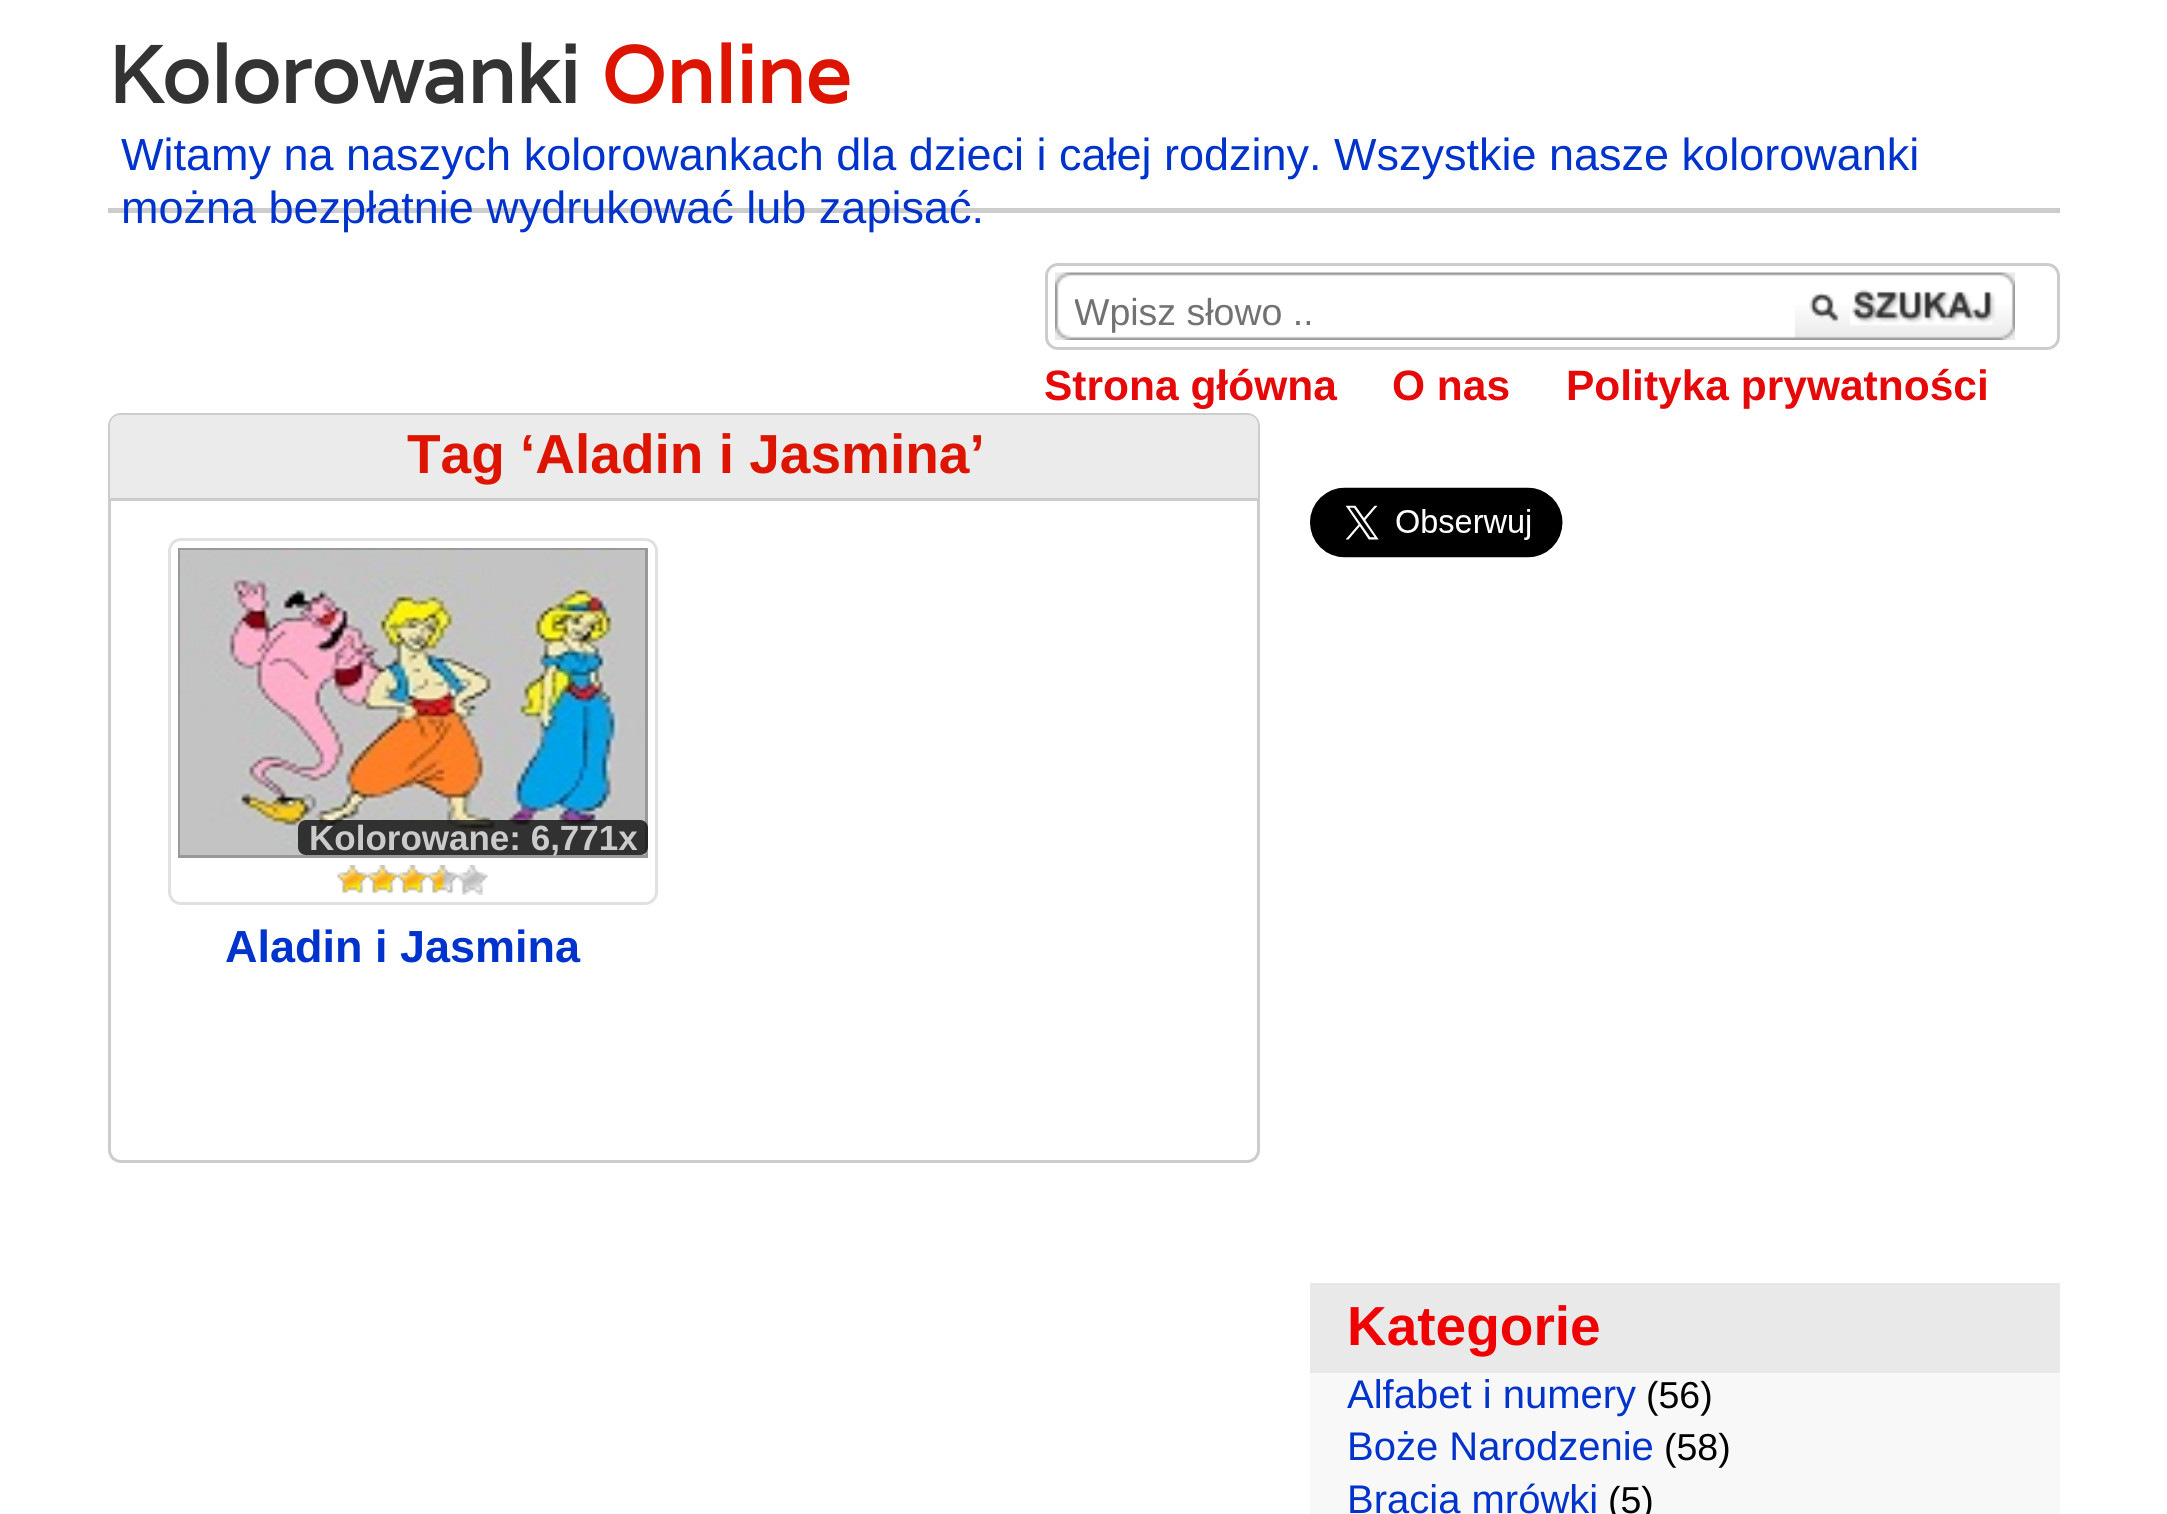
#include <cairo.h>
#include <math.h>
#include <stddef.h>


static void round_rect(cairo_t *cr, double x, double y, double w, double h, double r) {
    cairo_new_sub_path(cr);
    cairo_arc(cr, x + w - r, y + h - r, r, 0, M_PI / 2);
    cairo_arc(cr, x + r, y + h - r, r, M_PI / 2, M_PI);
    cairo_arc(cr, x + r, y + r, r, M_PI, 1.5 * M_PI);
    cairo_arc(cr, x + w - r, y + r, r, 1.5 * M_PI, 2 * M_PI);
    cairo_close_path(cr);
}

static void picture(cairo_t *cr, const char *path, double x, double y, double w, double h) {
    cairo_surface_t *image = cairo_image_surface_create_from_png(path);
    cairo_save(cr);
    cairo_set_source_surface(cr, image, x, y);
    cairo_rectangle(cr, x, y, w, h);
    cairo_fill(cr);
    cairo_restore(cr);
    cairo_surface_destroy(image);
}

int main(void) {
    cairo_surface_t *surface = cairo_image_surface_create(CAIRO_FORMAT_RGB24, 2167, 1514);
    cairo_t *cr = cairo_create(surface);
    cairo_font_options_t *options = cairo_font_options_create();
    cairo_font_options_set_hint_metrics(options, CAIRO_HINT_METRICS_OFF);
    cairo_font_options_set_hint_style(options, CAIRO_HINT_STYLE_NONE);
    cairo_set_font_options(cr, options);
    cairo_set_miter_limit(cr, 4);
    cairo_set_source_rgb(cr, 1, 1, 1);
    cairo_paint(cr);
    cairo_set_source_rgb(cr, 0.8, 0.8, 0.8);
    cairo_rectangle(cr, 108, 208, 1952, 5);
    cairo_fill(cr);
    cairo_select_font_face(cr, "Varela", CAIRO_FONT_SLANT_NORMAL, CAIRO_FONT_WEIGHT_BOLD);
    cairo_set_font_size(cr, 80);
    cairo_set_source_rgb(cr, 0.2, 0.2, 0.2);
    cairo_move_to(cr, 108, 103);
    cairo_show_text(cr, "Kolorowanki");
    cairo_set_source_rgb(cr, 0.867, 0.082, 0);
    cairo_move_to(cr, 601, 103);
    cairo_show_text(cr, "Online");
    cairo_select_font_face(cr, "Liberation Sans", CAIRO_FONT_SLANT_NORMAL, CAIRO_FONT_WEIGHT_NORMAL);
    cairo_set_font_size(cr, 45);
    cairo_set_source_rgb(cr, 0, 0.2, 0.8);
    cairo_move_to(cr, 121, 170);
    cairo_show_text(cr, "Witamy na naszych kolorowankach dla dzieci i całej rodziny. Wszystkie nasze kolorowanki");
    cairo_move_to(cr, 121, 223);
    cairo_show_text(cr, "można bezpłatnie wydrukować lub zapisać.");
    round_rect(cr, 1046.5, 264.5, 1012, 84, 11.5);
    cairo_set_source_rgb(cr, 0.8, 0.8, 0.8);
    cairo_set_line_width(cr, 3);
    cairo_stroke(cr);
    picture(cr, "img1.png", 1055, 272, 740, 68);
    cairo_save(cr);
    cairo_rectangle(cr, 1075, 290, 700, 43);
    cairo_clip(cr);
    cairo_set_font_size(cr, 37.5);
    cairo_set_source_rgb(cr, 0.451, 0.447, 0.447);
    cairo_move_to(cr, 1074, 325);
    cairo_show_text(cr, "Wpisz słowo ..");
    cairo_restore(cr);
    picture(cr, "img2.png", 1795, 272, 220, 68);
    cairo_select_font_face(cr, "Liberation Sans", CAIRO_FONT_SLANT_NORMAL, CAIRO_FONT_WEIGHT_BOLD);
    cairo_set_font_size(cr, 42.5);
    cairo_set_source_rgb(cr, 0.902, 0.039, 0.039);
    cairo_move_to(cr, 1044, 400);
    cairo_show_text(cr, "Strona główna");
    cairo_move_to(cr, 1392, 400);
    cairo_show_text(cr, "O nas");
    cairo_move_to(cr, 1566, 400);
    cairo_show_text(cr, "Polityka prywatności");
    round_rect(cr, 109.5, 414.5, 1149, 747, 11.5);
    cairo_set_source_rgb(cr, 0.8, 0.8, 0.8);
    cairo_stroke(cr);
    cairo_set_source_rgb(cr, 0.918, 0.918, 0.918);
    cairo_new_path(cr);
    cairo_move_to(cr, 120, 415);
    cairo_line_to(cr, 1248, 415);
    cairo_curve_to(cr, 1253.5, 415, 1258, 419.5, 1258, 425);
    cairo_line_to(cr, 1258, 500);
    cairo_line_to(cr, 110, 500);
    cairo_line_to(cr, 110, 425);
    cairo_curve_to(cr, 110, 419.5, 114.5, 415, 120, 415);
    cairo_close_path(cr);
    cairo_fill(cr);
    cairo_set_source_rgb(cr, 0.8, 0.8, 0.8);
    cairo_rectangle(cr, 110, 498, 1148, 3);
    cairo_fill(cr);
    cairo_set_font_size(cr, 55);
    cairo_set_source_rgb(cr, 0.867, 0.082, 0);
    cairo_move_to(cr, 407, 473);
    cairo_show_text(cr, "Tag ‘Aladin i Jasmina’");
    round_rect(cr, 169.5, 539.5, 487, 364, 11.5);
    cairo_set_source_rgb(cr, 0.882, 0.882, 0.882);
    cairo_stroke(cr);
    cairo_set_source_rgb(cr, 0.6, 0.6, 0.6);
    cairo_rectangle(cr, 178, 548, 470, 310);
    cairo_fill(cr);
    picture(cr, "img3.png", 180, 550, 465, 305);
    cairo_set_source_rgba(cr, 0, 0, 0, 0.75);
    round_rect(cr, 298, 820, 350, 35, 8);
    cairo_fill(cr);
    cairo_set_font_size(cr, 35);
    cairo_set_source_rgb(cr, 0.796, 0.796, 0.796);
    cairo_move_to(cr, 309, 850);
    cairo_show_text(cr, "Kolorowane: 6,771x");
    picture(cr, "img4.png", 337, 865, 31, 29);
    picture(cr, "img5.png", 367, 865, 31, 29);
    picture(cr, "img5.png", 397, 865, 31, 29);
    picture(cr, "img6.png", 427, 865, 31, 29);
    picture(cr, "img7.png", 457, 865, 31, 30);
    cairo_set_font_size(cr, 45);
    cairo_set_source_rgb(cr, 0, 0.2, 0.8);
    cairo_move_to(cr, 225, 962);
    cairo_show_text(cr, "Aladin i Jasmina");
    picture(cr, "img8.png", 1310, 487, 253, 71);
    cairo_set_source_rgb(cr, 0.914, 0.914, 0.914);
    cairo_rectangle(cr, 1310, 1283, 750, 90);
    cairo_fill(cr);
    cairo_set_font_size(cr, 55);
    cairo_set_source_rgb(cr, 0.941, 0, 0);
    cairo_move_to(cr, 1347, 1345);
    cairo_show_text(cr, "Kategorie");
    cairo_set_source_rgb(cr, 0.969, 0.969, 0.969);
    cairo_rectangle(cr, 1310, 1373, 750, 141);
    cairo_fill(cr);
    cairo_select_font_face(cr, "Liberation Sans", CAIRO_FONT_SLANT_NORMAL, CAIRO_FONT_WEIGHT_NORMAL);
    cairo_set_font_size(cr, 40);
    cairo_set_source_rgb(cr, 0, 0.2, 0.8);
    cairo_move_to(cr, 1347, 1408);
    cairo_show_text(cr, "Alfabet i numery");
    cairo_set_font_size(cr, 37.5);
    cairo_set_source_rgb(cr, 0, 0, 0);
    cairo_move_to(cr, 1646, 1408);
    cairo_show_text(cr, "(56)");
    cairo_set_font_size(cr, 40);
    cairo_set_source_rgb(cr, 0, 0.2, 0.8);
    cairo_move_to(cr, 1347, 1460);
    cairo_show_text(cr, "Boże Narodzenie");
    cairo_set_font_size(cr, 37.5);
    cairo_set_source_rgb(cr, 0, 0, 0);
    cairo_move_to(cr, 1664, 1460);
    cairo_show_text(cr, "(58)");
    cairo_set_font_size(cr, 40);
    cairo_set_source_rgb(cr, 0, 0.2, 0.8);
    cairo_move_to(cr, 1347, 1513);
    cairo_show_text(cr, "Bracia mrówki");
    cairo_set_font_size(cr, 37.5);
    cairo_set_source_rgb(cr, 0, 0, 0);
    cairo_move_to(cr, 1608, 1513);
    cairo_show_text(cr, "(5)");
    cairo_surface_write_to_png(surface, "page.png");
    cairo_font_options_destroy(options);
    cairo_destroy(cr);
    cairo_surface_destroy(surface);
    return 0;
}
